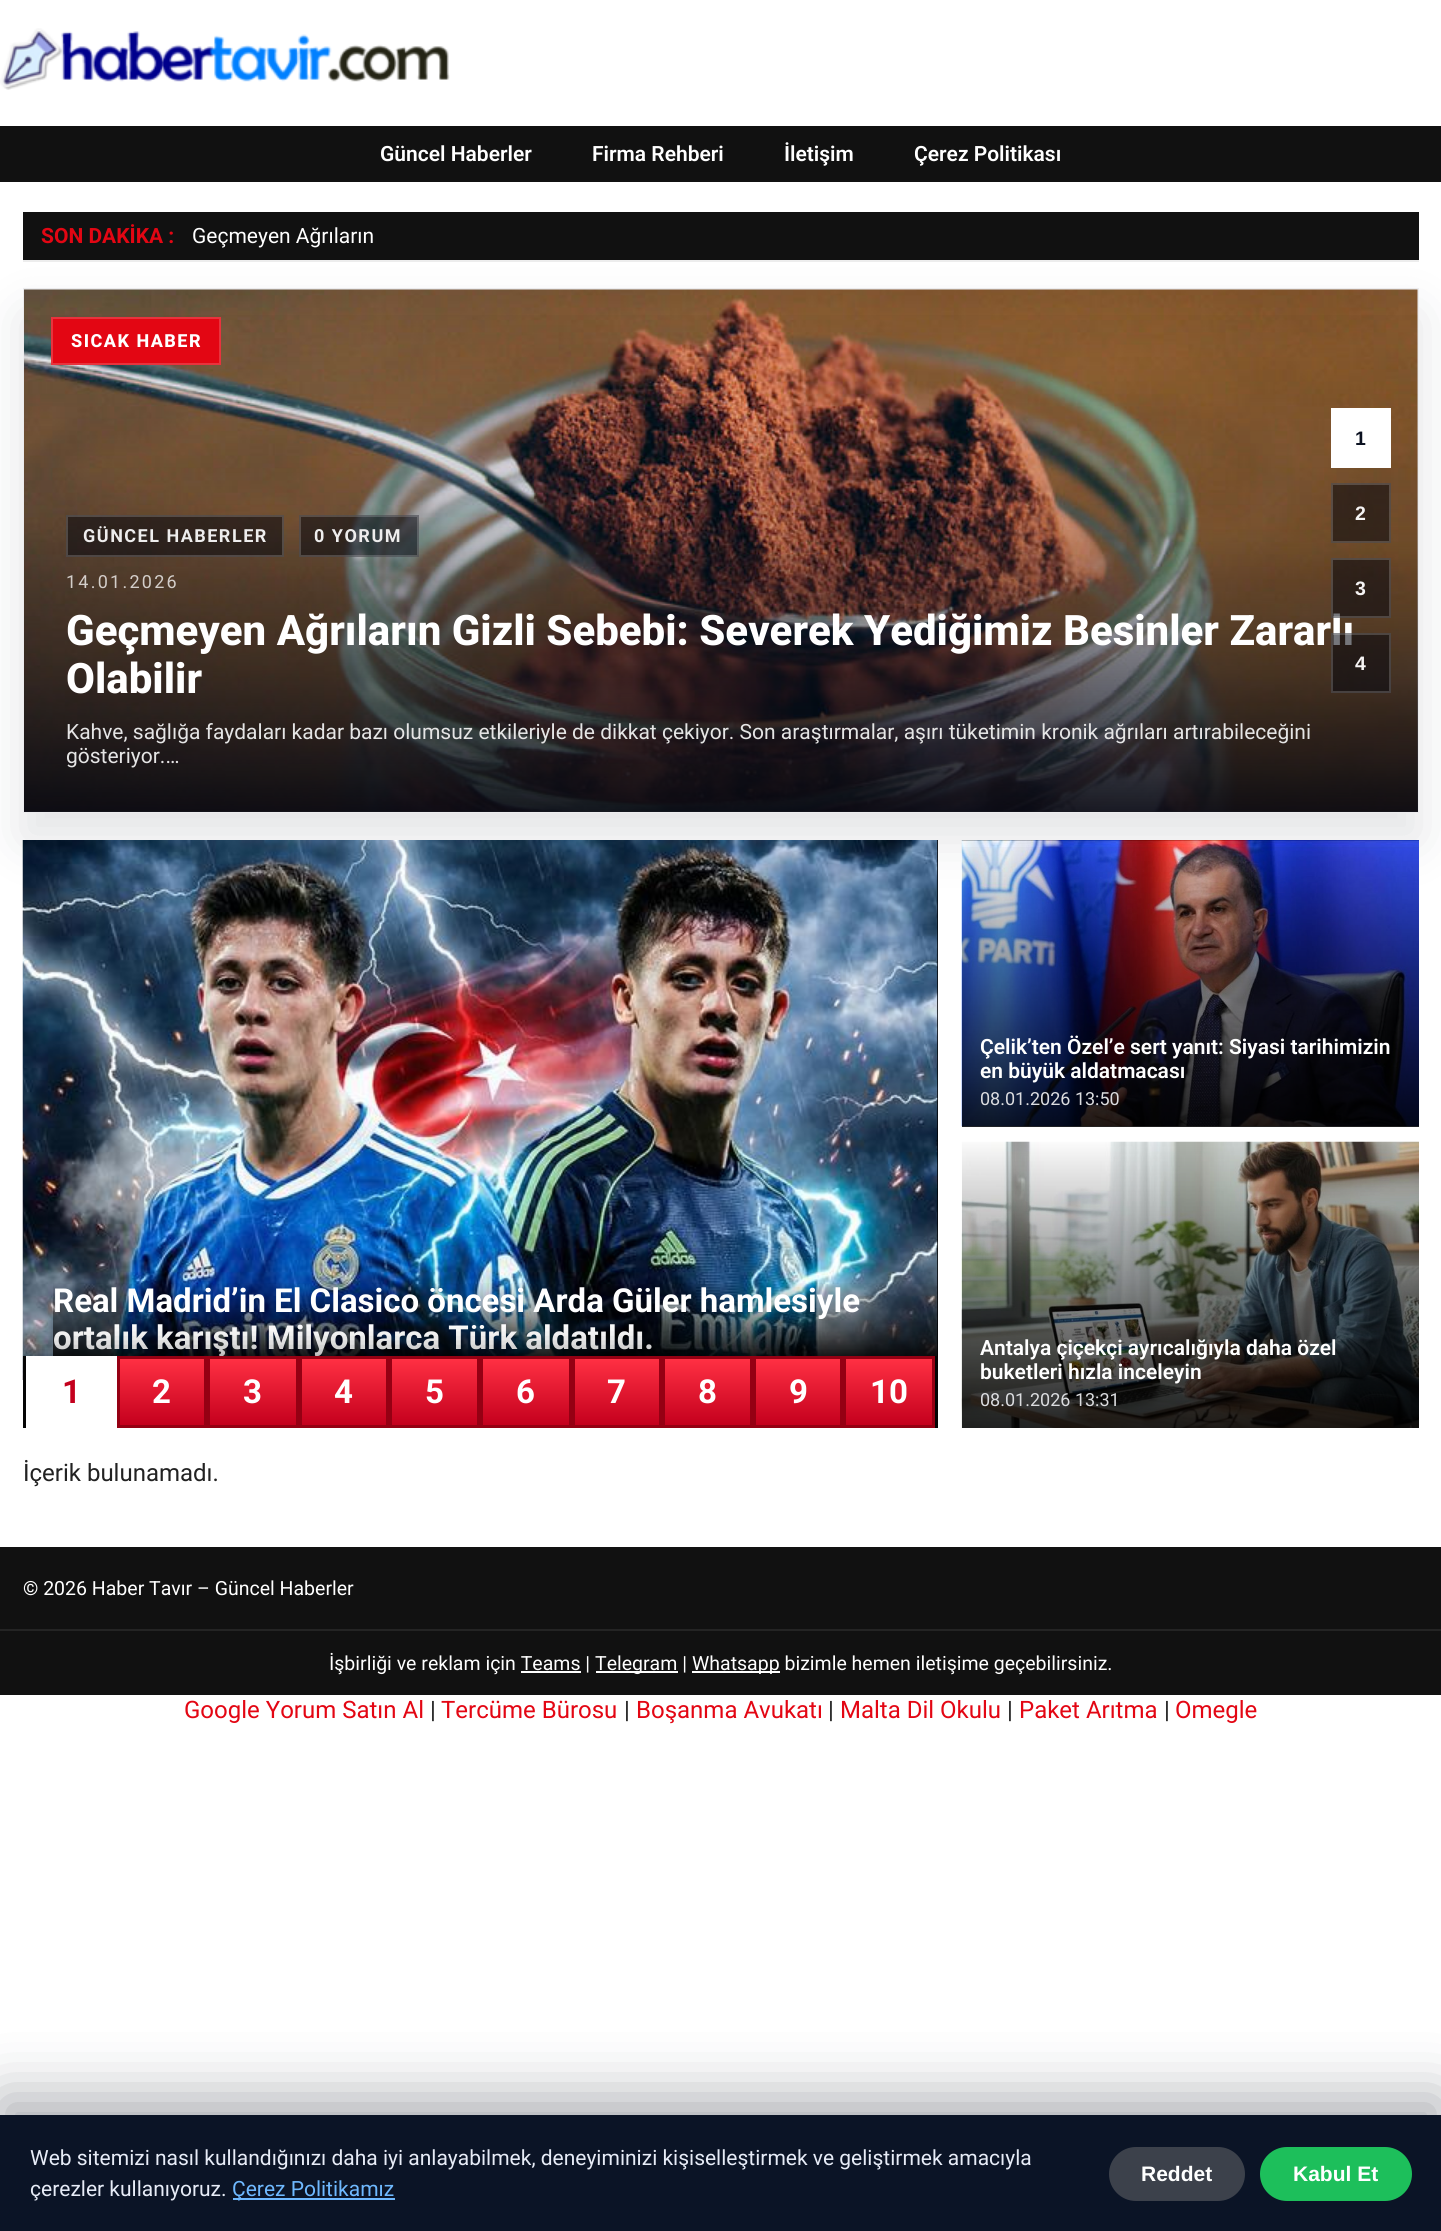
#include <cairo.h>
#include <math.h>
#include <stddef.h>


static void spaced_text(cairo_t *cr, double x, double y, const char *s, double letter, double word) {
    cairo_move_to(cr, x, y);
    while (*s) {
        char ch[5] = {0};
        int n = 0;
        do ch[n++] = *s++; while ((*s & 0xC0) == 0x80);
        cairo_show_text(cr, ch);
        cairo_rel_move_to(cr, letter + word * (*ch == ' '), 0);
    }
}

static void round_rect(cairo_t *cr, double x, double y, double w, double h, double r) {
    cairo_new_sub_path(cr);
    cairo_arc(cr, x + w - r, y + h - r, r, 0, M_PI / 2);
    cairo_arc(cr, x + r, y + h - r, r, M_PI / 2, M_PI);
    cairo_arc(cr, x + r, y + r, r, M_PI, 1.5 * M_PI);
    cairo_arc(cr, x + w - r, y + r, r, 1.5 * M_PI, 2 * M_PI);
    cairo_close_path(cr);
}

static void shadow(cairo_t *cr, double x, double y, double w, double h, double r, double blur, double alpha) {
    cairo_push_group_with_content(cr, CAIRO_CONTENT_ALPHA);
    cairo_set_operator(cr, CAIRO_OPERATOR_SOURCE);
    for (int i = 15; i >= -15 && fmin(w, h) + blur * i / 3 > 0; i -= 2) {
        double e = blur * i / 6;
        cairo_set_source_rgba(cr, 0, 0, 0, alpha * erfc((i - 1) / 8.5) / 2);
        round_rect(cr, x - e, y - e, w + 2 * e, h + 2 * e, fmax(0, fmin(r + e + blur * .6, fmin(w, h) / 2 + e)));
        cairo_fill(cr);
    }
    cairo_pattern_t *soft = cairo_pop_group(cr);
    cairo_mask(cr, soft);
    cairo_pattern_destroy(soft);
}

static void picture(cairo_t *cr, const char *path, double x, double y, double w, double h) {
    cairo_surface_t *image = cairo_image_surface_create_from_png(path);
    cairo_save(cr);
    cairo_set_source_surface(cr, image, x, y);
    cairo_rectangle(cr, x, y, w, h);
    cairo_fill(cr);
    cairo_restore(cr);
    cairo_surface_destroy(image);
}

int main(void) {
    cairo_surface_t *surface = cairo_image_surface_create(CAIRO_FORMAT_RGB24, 1441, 2231);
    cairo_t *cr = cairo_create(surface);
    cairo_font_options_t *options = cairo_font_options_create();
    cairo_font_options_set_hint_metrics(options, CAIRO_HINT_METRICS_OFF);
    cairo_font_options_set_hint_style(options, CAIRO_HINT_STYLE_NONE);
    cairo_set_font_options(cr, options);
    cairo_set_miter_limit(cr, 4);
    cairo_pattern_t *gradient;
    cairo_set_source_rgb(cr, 1, 1, 1);
    cairo_paint(cr);
    picture(cr, "img1.png", 0, 28, 450, 62);
    cairo_set_source_rgb(cr, 0.067, 0.067, 0.067);
    cairo_rectangle(cr, 0, 126, 1441, 56);
    cairo_fill(cr);
    cairo_select_font_face(cr, "Roboto SemiBold", CAIRO_FONT_SLANT_NORMAL, CAIRO_FONT_WEIGHT_NORMAL);
    cairo_set_font_size(cr, 21);
    cairo_set_source_rgb(cr, 1, 1, 1);
    cairo_move_to(cr, 380, 161);
    cairo_show_text(cr, "Güncel Haberler");
    cairo_move_to(cr, 592, 161);
    cairo_show_text(cr, "Firma Rehberi");
    cairo_move_to(cr, 784, 161);
    cairo_show_text(cr, "İletişim");
    cairo_move_to(cr, 914, 161);
    cairo_show_text(cr, "Çerez Politikası");
    cairo_set_source_rgb(cr, 0.929, 0.929, 0.929);
    cairo_rectangle(cr, 23, 260, 1396, 2);
    cairo_fill(cr);
    cairo_set_source_rgb(cr, 0.067, 0.067, 0.067);
    cairo_rectangle(cr, 23, 212, 1396, 48);
    cairo_fill(cr);
    cairo_select_font_face(cr, "Roboto", CAIRO_FONT_SLANT_NORMAL, CAIRO_FONT_WEIGHT_BOLD);
    cairo_set_source_rgb(cr, 0.89, 0.024, 0.075);
    cairo_move_to(cr, 41, 243);
    cairo_show_text(cr, "SON DAKİKA :");
    cairo_select_font_face(cr, "Roboto", CAIRO_FONT_SLANT_NORMAL, CAIRO_FONT_WEIGHT_NORMAL);
    cairo_set_source_rgb(cr, 1, 1, 1);
    cairo_move_to(cr, 192, 243);
    cairo_show_text(cr, "Geçmeyen Ağrıların");
    cairo_set_source_rgb(cr, 0.063, 0.094, 0.157);
    shadow(cr, 23, 315, 1396, 525, 0, 26, 0.12);
    cairo_rectangle(cr, 24, 289, 1394, 523);
    cairo_set_source_rgb(cr, 0.925, 0.925, 0.933);
    cairo_stroke(cr);
    picture(cr, "img2.png", 24, 289, 1394, 523);
    gradient = cairo_pattern_create_linear(721, 812, 721, 290);
    cairo_pattern_add_color_stop_rgba(gradient, 0, 0.02, 0.027, 0.063, 0.92);
    cairo_pattern_add_color_stop_rgba(gradient, 0.55, 0.02, 0.027, 0.063, 0.2);
    cairo_pattern_add_color_stop_rgba(gradient, 1, 0.02, 0.027, 0.063, 0);
    cairo_set_source(cr, gradient);
    cairo_pattern_destroy(gradient);
    cairo_rectangle(cr, 24, 315, 1394, 497);
    cairo_fill(cr);
    cairo_set_source_rgb(cr, 0.89, 0.024, 0.075);
    cairo_rectangle(cr, 52, 318, 168, 46);
    cairo_fill_preserve(cr);
    cairo_set_source_rgb(cr, 0.91, 0.2, 0.239);
    cairo_stroke(cr);
    cairo_select_font_face(cr, "Roboto ExtraBold", CAIRO_FONT_SLANT_NORMAL, CAIRO_FONT_WEIGHT_NORMAL);
    cairo_set_font_size(cr, 18);
    cairo_set_source_rgb(cr, 1, 1, 1);
    spaced_text(cr, 71, 347, "SICAK HABER", 1.5, 0);
    cairo_set_source_rgba(cr, 0.02, 0.027, 0.063, 0.55);
    cairo_rectangle(cr, 66, 515, 218, 42);
    cairo_fill(cr);
    cairo_rectangle(cr, 67, 516, 216, 40);
    cairo_set_source_rgba(cr, 1, 1, 1, 0.18);
    cairo_stroke(cr);
    cairo_select_font_face(cr, "Roboto", CAIRO_FONT_SLANT_NORMAL, CAIRO_FONT_WEIGHT_BOLD);
    cairo_set_source_rgb(cr, 0.933, 0.929, 0.929);
    spaced_text(cr, 83, 542, "GÜNCEL HABERLER", 1.5, 0);
    cairo_set_source_rgba(cr, 0.02, 0.027, 0.063, 0.55);
    cairo_rectangle(cr, 299, 515, 120, 42);
    cairo_fill(cr);
    cairo_rectangle(cr, 300, 516, 118, 40);
    cairo_set_source_rgba(cr, 1, 1, 1, 0.18);
    cairo_stroke(cr);
    cairo_set_source_rgb(cr, 0.933, 0.929, 0.929);
    spaced_text(cr, 314, 542, "0 YORUM", 1.5, 0);
    cairo_select_font_face(cr, "Roboto", CAIRO_FONT_SLANT_NORMAL, CAIRO_FONT_WEIGHT_NORMAL);
    cairo_set_source_rgb(cr, 0.827, 0.808, 0.792);
    spaced_text(cr, 66, 588, "14.01.2026", 2.25, 0);
    cairo_select_font_face(cr, "Roboto ExtraBold", CAIRO_FONT_SLANT_NORMAL, CAIRO_FONT_WEIGHT_NORMAL);
    cairo_set_font_size(cr, 42);
    cairo_set_source_rgb(cr, 1, 1, 1);
    cairo_move_to(cr, 66, 645);
    cairo_show_text(cr, "Geçmeyen Ağrıların Gizli Sebebi: Severek Yediğimiz Besinler Zararlı");
    cairo_move_to(cr, 66, 693);
    cairo_show_text(cr, "Olabilir");
    cairo_select_font_face(cr, "Roboto", CAIRO_FONT_SLANT_NORMAL, CAIRO_FONT_WEIGHT_NORMAL);
    cairo_set_font_size(cr, 21);
    cairo_set_source_rgb(cr, 0.898, 0.898, 0.898);
    cairo_move_to(cr, 66, 739);
    cairo_show_text(cr, "Kahve, sağlığa faydaları kadar bazı olumsuz etkileriyle de dikkat çekiyor. Son araştırmalar, aşırı tüketimin kronik ağrıları artırabileceğini");
    cairo_move_to(cr, 66, 763);
    cairo_show_text(cr, "gösteriyor.…");
    cairo_set_source_rgb(cr, 1, 1, 1);
    cairo_rectangle(cr, 1331, 408, 60, 60);
    cairo_fill(cr);
    cairo_select_font_face(cr, "Liberation Sans", CAIRO_FONT_SLANT_NORMAL, CAIRO_FONT_WEIGHT_BOLD);
    cairo_set_font_size(cr, 19.5);
    cairo_set_source_rgb(cr, 0.043, 0.067, 0.125);
    cairo_move_to(cr, 1355, 445);
    cairo_show_text(cr, "1");
    cairo_set_source_rgba(cr, 0.02, 0.027, 0.063, 0.55);
    cairo_rectangle(cr, 1331, 483, 60, 60);
    cairo_fill(cr);
    cairo_rectangle(cr, 1332, 484, 58, 58);
    cairo_set_source_rgba(cr, 1, 1, 1, 0.18);
    cairo_stroke(cr);
    cairo_set_source_rgb(cr, 0.961, 0.957, 0.957);
    cairo_move_to(cr, 1355, 520);
    cairo_show_text(cr, "2");
    cairo_set_source_rgba(cr, 0.02, 0.027, 0.063, 0.55);
    cairo_rectangle(cr, 1331, 558, 60, 60);
    cairo_fill(cr);
    cairo_rectangle(cr, 1332, 559, 58, 58);
    cairo_set_source_rgba(cr, 1, 1, 1, 0.18);
    cairo_stroke(cr);
    cairo_set_source_rgb(cr, 0.961, 0.957, 0.957);
    cairo_move_to(cr, 1355, 595);
    cairo_show_text(cr, "3");
    cairo_set_source_rgba(cr, 0.02, 0.027, 0.063, 0.55);
    cairo_rectangle(cr, 1331, 633, 60, 60);
    cairo_fill(cr);
    cairo_rectangle(cr, 1332, 634, 58, 58);
    cairo_set_source_rgba(cr, 1, 1, 1, 0.18);
    cairo_stroke(cr);
    cairo_set_source_rgb(cr, 0.961, 0.957, 0.957);
    cairo_move_to(cr, 1355, 670);
    cairo_show_text(cr, "4");
    cairo_set_source_rgb(cr, 0, 0, 0);
    cairo_rectangle(cr, 937, 840, 1, 516);
    cairo_fill(cr);
    picture(cr, "img3.png", 22, 840, 916, 540);
    gradient = cairo_pattern_create_linear(495, 1356, 495, 1281);
    cairo_pattern_add_color_stop_rgba(gradient, 0, 0, 0, 0, 0.85);
    cairo_pattern_add_color_stop_rgba(gradient, 1, 0, 0, 0, 0);
    cairo_set_source(cr, gradient);
    cairo_pattern_destroy(gradient);
    cairo_rectangle(cr, 53, 1283, 885, 73);
    cairo_fill(cr);
    cairo_select_font_face(cr, "Roboto", CAIRO_FONT_SLANT_NORMAL, CAIRO_FONT_WEIGHT_BOLD);
    cairo_set_font_size(cr, 33);
    cairo_set_source_rgb(cr, 1, 1, 1);
    cairo_move_to(cr, 53, 1312);
    cairo_show_text(cr, "Real Madrid’in El Clasico öncesi Arda Güler hamlesiyle");
    cairo_move_to(cr, 53, 1349);
    cairo_show_text(cr, "ortalık karıştı! Milyonlarca Türk aldatıldı.");
    picture(cr, "img5.png", 961, 1141, 458, 287);
    cairo_save(cr);
    cairo_rectangle(cr, 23, 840, 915, 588);
    cairo_clip(cr);
    cairo_set_source_rgb(cr, 0, 0, 0);
    shadow(cr, 23, 1347, 915, 72, 0, 13.5, 0.35);
    cairo_restore(cr);
    cairo_set_source_rgb(cr, 0.02, 0.02, 0.02);
    cairo_rectangle(cr, 23, 1356, 915, 72);
    cairo_fill(cr);
    cairo_set_source_rgb(cr, 1, 1, 1);
    cairo_rectangle(cr, 26, 1356, 91, 72);
    cairo_fill(cr);
    cairo_set_source_rgb(cr, 0.769, 0, 0.114);
    cairo_move_to(cr, 62, 1403);
    cairo_show_text(cr, "1");
    gradient = cairo_pattern_create_linear(162, 1359, 162, 1425);
    cairo_pattern_add_color_stop_rgba(gradient, 0, 1, 0.188, 0.263, 1);
    cairo_pattern_add_color_stop_rgba(gradient, 1, 0.769, 0, 0.114, 1);
    cairo_set_source(cr, gradient);
    cairo_pattern_destroy(gradient);
    cairo_rectangle(cr, 120, 1359, 84, 66);
    cairo_fill(cr);
    cairo_rectangle(cr, 118.5, 1357.5, 87, 69);
    cairo_set_source_rgb(cr, 0.584, 0, 0.078);
    cairo_set_line_width(cr, 3);
    cairo_stroke(cr);
    cairo_set_source_rgb(cr, 1, 1, 1);
    cairo_move_to(cr, 152, 1403);
    cairo_show_text(cr, "2");
    gradient = cairo_pattern_create_linear(253, 1359, 253, 1425);
    cairo_pattern_add_color_stop_rgba(gradient, 0, 1, 0.188, 0.263, 1);
    cairo_pattern_add_color_stop_rgba(gradient, 1, 0.769, 0, 0.114, 1);
    cairo_set_source(cr, gradient);
    cairo_pattern_destroy(gradient);
    cairo_rectangle(cr, 210, 1359, 86, 66);
    cairo_fill(cr);
    cairo_rectangle(cr, 208.5, 1357.5, 89, 69);
    cairo_set_source_rgb(cr, 0.584, 0, 0.078);
    cairo_stroke(cr);
    cairo_set_source_rgb(cr, 1, 1, 1);
    cairo_move_to(cr, 243, 1403);
    cairo_show_text(cr, "3");
    gradient = cairo_pattern_create_linear(344, 1359, 344, 1425);
    cairo_pattern_add_color_stop_rgba(gradient, 0, 1, 0.188, 0.263, 1);
    cairo_pattern_add_color_stop_rgba(gradient, 1, 0.769, 0, 0.114, 1);
    cairo_set_source(cr, gradient);
    cairo_pattern_destroy(gradient);
    cairo_rectangle(cr, 302, 1359, 84, 66);
    cairo_fill(cr);
    cairo_rectangle(cr, 300.5, 1357.5, 87, 69);
    cairo_set_source_rgb(cr, 0.584, 0, 0.078);
    cairo_stroke(cr);
    cairo_set_source_rgb(cr, 1, 1, 1);
    cairo_move_to(cr, 334, 1403);
    cairo_show_text(cr, "4");
    gradient = cairo_pattern_create_linear(434, 1359, 434, 1425);
    cairo_pattern_add_color_stop_rgba(gradient, 0, 1, 0.188, 0.263, 1);
    cairo_pattern_add_color_stop_rgba(gradient, 1, 0.769, 0, 0.114, 1);
    cairo_set_source(cr, gradient);
    cairo_pattern_destroy(gradient);
    cairo_rectangle(cr, 392, 1359, 85, 66);
    cairo_fill(cr);
    cairo_rectangle(cr, 390.5, 1357.5, 88, 69);
    cairo_set_source_rgb(cr, 0.584, 0, 0.078);
    cairo_stroke(cr);
    cairo_set_source_rgb(cr, 1, 1, 1);
    cairo_move_to(cr, 425, 1403);
    cairo_show_text(cr, "5");
    gradient = cairo_pattern_create_linear(526, 1359, 526, 1425);
    cairo_pattern_add_color_stop_rgba(gradient, 0, 1, 0.188, 0.263, 1);
    cairo_pattern_add_color_stop_rgba(gradient, 1, 0.769, 0, 0.114, 1);
    cairo_set_source(cr, gradient);
    cairo_pattern_destroy(gradient);
    cairo_rectangle(cr, 483, 1359, 86, 66);
    cairo_fill(cr);
    cairo_rectangle(cr, 481.5, 1357.5, 89, 69);
    cairo_set_source_rgb(cr, 0.584, 0, 0.078);
    cairo_stroke(cr);
    cairo_set_source_rgb(cr, 1, 1, 1);
    cairo_move_to(cr, 516, 1403);
    cairo_show_text(cr, "6");
    gradient = cairo_pattern_create_linear(617, 1359, 617, 1425);
    cairo_pattern_add_color_stop_rgba(gradient, 0, 1, 0.188, 0.263, 1);
    cairo_pattern_add_color_stop_rgba(gradient, 1, 0.769, 0, 0.114, 1);
    cairo_set_source(cr, gradient);
    cairo_pattern_destroy(gradient);
    cairo_rectangle(cr, 575, 1359, 84, 66);
    cairo_fill(cr);
    cairo_rectangle(cr, 573.5, 1357.5, 87, 69);
    cairo_set_source_rgb(cr, 0.584, 0, 0.078);
    cairo_stroke(cr);
    cairo_set_source_rgb(cr, 1, 1, 1);
    cairo_move_to(cr, 607, 1403);
    cairo_show_text(cr, "7");
    gradient = cairo_pattern_create_linear(707, 1359, 707, 1425);
    cairo_pattern_add_color_stop_rgba(gradient, 0, 1, 0.188, 0.263, 1);
    cairo_pattern_add_color_stop_rgba(gradient, 1, 0.769, 0, 0.114, 1);
    cairo_set_source(cr, gradient);
    cairo_pattern_destroy(gradient);
    cairo_rectangle(cr, 665, 1359, 85, 66);
    cairo_fill(cr);
    cairo_rectangle(cr, 663.5, 1357.5, 88, 69);
    cairo_set_source_rgb(cr, 0.584, 0, 0.078);
    cairo_stroke(cr);
    cairo_set_source_rgb(cr, 1, 1, 1);
    cairo_move_to(cr, 698, 1403);
    cairo_show_text(cr, "8");
    gradient = cairo_pattern_create_linear(798, 1359, 798, 1425);
    cairo_pattern_add_color_stop_rgba(gradient, 0, 1, 0.188, 0.263, 1);
    cairo_pattern_add_color_stop_rgba(gradient, 1, 0.769, 0, 0.114, 1);
    cairo_set_source(cr, gradient);
    cairo_pattern_destroy(gradient);
    cairo_rectangle(cr, 756, 1359, 84, 66);
    cairo_fill(cr);
    cairo_rectangle(cr, 754.5, 1357.5, 87, 69);
    cairo_set_source_rgb(cr, 0.584, 0, 0.078);
    cairo_stroke(cr);
    cairo_set_source_rgb(cr, 1, 1, 1);
    cairo_move_to(cr, 789, 1403);
    cairo_show_text(cr, "9");
    gradient = cairo_pattern_create_linear(889, 1359, 889, 1425);
    cairo_pattern_add_color_stop_rgba(gradient, 0, 1, 0.188, 0.263, 1);
    cairo_pattern_add_color_stop_rgba(gradient, 1, 0.769, 0, 0.114, 1);
    cairo_set_source(cr, gradient);
    cairo_pattern_destroy(gradient);
    cairo_rectangle(cr, 846, 1359, 86, 66);
    cairo_fill(cr);
    cairo_rectangle(cr, 844.5, 1357.5, 89, 69);
    cairo_set_source_rgb(cr, 0.584, 0, 0.078);
    cairo_stroke(cr);
    cairo_set_source_rgb(cr, 1, 1, 1);
    cairo_move_to(cr, 870, 1403);
    cairo_show_text(cr, "10");
    picture(cr, "img4.png", 961, 840, 458, 287);
    gradient = cairo_pattern_create_linear(1190, 1127, 1190, 840);
    cairo_pattern_add_color_stop_rgba(gradient, 0, 0, 0, 0, 0.85);
    cairo_pattern_add_color_stop_rgba(gradient, 1, 0, 0, 0, 0);
    cairo_set_source(cr, gradient);
    cairo_pattern_destroy(gradient);
    cairo_rectangle(cr, 962, 847, 457, 280);
    cairo_fill(cr);
    cairo_select_font_face(cr, "Roboto SemiBold", CAIRO_FONT_SLANT_NORMAL, CAIRO_FONT_WEIGHT_NORMAL);
    cairo_set_font_size(cr, 21);
    cairo_set_source_rgb(cr, 1, 1, 1);
    cairo_move_to(cr, 980, 1054);
    cairo_show_text(cr, "Çelik’ten Özel’e sert yanıt: Siyasi tarihimizin");
    cairo_move_to(cr, 980, 1078);
    cairo_show_text(cr, "en büyük aldatmacası");
    cairo_select_font_face(cr, "Roboto", CAIRO_FONT_SLANT_NORMAL, CAIRO_FONT_WEIGHT_NORMAL);
    cairo_set_font_size(cr, 18);
    cairo_set_source_rgb(cr, 0.859, 0.863, 0.875);
    cairo_move_to(cr, 980, 1105);
    cairo_show_text(cr, "08.01.2026 13:50");
    cairo_select_font_face(cr, "Roboto SemiBold", CAIRO_FONT_SLANT_NORMAL, CAIRO_FONT_WEIGHT_NORMAL);
    cairo_set_font_size(cr, 21);
    cairo_set_source_rgb(cr, 1, 1, 1);
    cairo_move_to(cr, 980, 1355);
    cairo_show_text(cr, "Antalya çiçekçi ayrıcalığıyla daha özel");
    cairo_move_to(cr, 980, 1379);
    cairo_show_text(cr, "buketleri hızla inceleyin");
    cairo_select_font_face(cr, "Roboto", CAIRO_FONT_SLANT_NORMAL, CAIRO_FONT_WEIGHT_NORMAL);
    cairo_set_font_size(cr, 18);
    cairo_set_source_rgb(cr, 0.859, 0.863, 0.875);
    cairo_move_to(cr, 980, 1406);
    cairo_show_text(cr, "08.01.2026 13:31");
    cairo_set_font_size(cr, 24);
    cairo_set_source_rgb(cr, 0.133, 0.133, 0.133);
    cairo_move_to(cr, 23, 1481);
    cairo_show_text(cr, "İçerik bulunamadı.");
    cairo_set_source_rgb(cr, 0.067, 0.067, 0.067);
    cairo_rectangle(cr, 0, 1547, 1441, 82);
    cairo_fill(cr);
    cairo_set_font_size(cr, 19.5);
    cairo_set_source_rgb(cr, 1, 1, 1);
    cairo_move_to(cr, 23, 1595);
    cairo_show_text(cr, "© 2026 Haber Tavır – Güncel Haberler");
    cairo_set_source_rgb(cr, 0.067, 0.067, 0.067);
    cairo_rectangle(cr, 0, 1631, 1441, 64);
    cairo_fill(cr);
    cairo_set_source_rgb(cr, 0.141, 0.141, 0.141);
    cairo_rectangle(cr, 0, 1629, 1441, 2);
    cairo_fill(cr);
    cairo_set_source_rgb(cr, 1, 1, 1);
    cairo_move_to(cr, 329, 1670);
    cairo_show_text(cr, "İşbirliği ve reklam için Teams |");
    cairo_rectangle(cr, 596, 1671, 82, 2);
    cairo_fill(cr);
    cairo_move_to(cr, 595, 1670);
    cairo_show_text(cr, "Telegram |");
    cairo_rectangle(cr, 692, 1671, 88, 2);
    cairo_fill(cr);
    cairo_move_to(cr, 692, 1670);
    cairo_show_text(cr, "Whatsapp bizimle hemen iletişime geçebilirsiniz.");
    cairo_rectangle(cr, 521, 1671, 60, 2);
    cairo_fill(cr);
    cairo_set_font_size(cr, 24);
    cairo_set_source_rgb(cr, 0.89, 0.024, 0.075);
    cairo_move_to(cr, 184, 1718);
    cairo_show_text(cr, "Google Yorum Satın Al");
    cairo_set_source_rgb(cr, 0.133, 0.133, 0.133);
    cairo_move_to(cr, 430, 1718);
    cairo_show_text(cr, "|");
    cairo_set_source_rgb(cr, 0.89, 0.024, 0.075);
    cairo_move_to(cr, 441, 1718);
    cairo_show_text(cr, "Tercüme Bürosu");
    cairo_set_source_rgb(cr, 0.133, 0.133, 0.133);
    cairo_move_to(cr, 624, 1718);
    cairo_show_text(cr, "|");
    cairo_set_source_rgb(cr, 0.89, 0.024, 0.075);
    cairo_move_to(cr, 636, 1718);
    cairo_show_text(cr, "Boşanma Avukatı");
    cairo_set_source_rgb(cr, 0.133, 0.133, 0.133);
    cairo_move_to(cr, 828, 1718);
    cairo_show_text(cr, "|");
    cairo_set_source_rgb(cr, 0.89, 0.024, 0.075);
    cairo_move_to(cr, 840, 1718);
    cairo_show_text(cr, "Malta Dil Okulu");
    cairo_set_source_rgb(cr, 0.133, 0.133, 0.133);
    cairo_move_to(cr, 1007, 1718);
    cairo_show_text(cr, "|");
    cairo_set_source_rgb(cr, 0.89, 0.024, 0.075);
    cairo_move_to(cr, 1019, 1718);
    cairo_show_text(cr, "Paket Arıtma");
    cairo_set_source_rgb(cr, 0.133, 0.133, 0.133);
    cairo_move_to(cr, 1164, 1718);
    cairo_show_text(cr, "|");
    cairo_set_source_rgb(cr, 0.89, 0.024, 0.075);
    cairo_move_to(cr, 1175, 1718);
    cairo_show_text(cr, "Omegle");
    cairo_set_source_rgb(cr, 0.047, 0.082, 0.133);
    shadow(cr, 0, 2097, 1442, 117, 0, 30, 0.35);
    cairo_set_source_rgb(cr, 0.043, 0.082, 0.149);
    cairo_rectangle(cr, 0, 2115, 1441, 116);
    cairo_fill(cr);
    cairo_set_font_size(cr, 21);
    cairo_set_source_rgb(cr, 0.906, 0.925, 0.965);
    cairo_move_to(cr, 30, 2165);
    cairo_show_text(cr, "Web sitemizi nasıl kullandığınızı daha iyi anlayabilmek, deneyiminizi kişiselleştirmek ve geliştirmek amacıyla");
    cairo_move_to(cr, 30, 2196);
    cairo_show_text(cr, "çerezler kullanıyoruz.");
    cairo_set_source_rgb(cr, 0.435, 0.725, 1);
    cairo_rectangle(cr, 233, 2198, 162, 2);
    cairo_fill(cr);
    cairo_move_to(cr, 232, 2196);
    cairo_show_text(cr, "Çerez Politikamız");
    cairo_set_source_rgb(cr, 0.235, 0.255, 0.294);
    round_rect(cr, 1109, 2147, 136, 54, 27);
    cairo_fill(cr);
    cairo_select_font_face(cr, "Liberation Sans", CAIRO_FONT_SLANT_NORMAL, CAIRO_FONT_WEIGHT_BOLD);
    cairo_set_source_rgb(cr, 1, 1, 1);
    cairo_move_to(cr, 1141, 2181);
    cairo_show_text(cr, "Reddet");
    cairo_set_source_rgb(cr, 0.114, 0.749, 0.357);
    round_rect(cr, 1260, 2147, 152, 54, 27);
    cairo_fill(cr);
    cairo_set_source_rgb(cr, 1, 1, 1);
    cairo_move_to(cr, 1293, 2181);
    cairo_show_text(cr, "Kabul Et");
    cairo_surface_write_to_png(surface, "page.png");
    cairo_font_options_destroy(options);
    cairo_destroy(cr);
    cairo_surface_destroy(surface);
    return 0;
}
